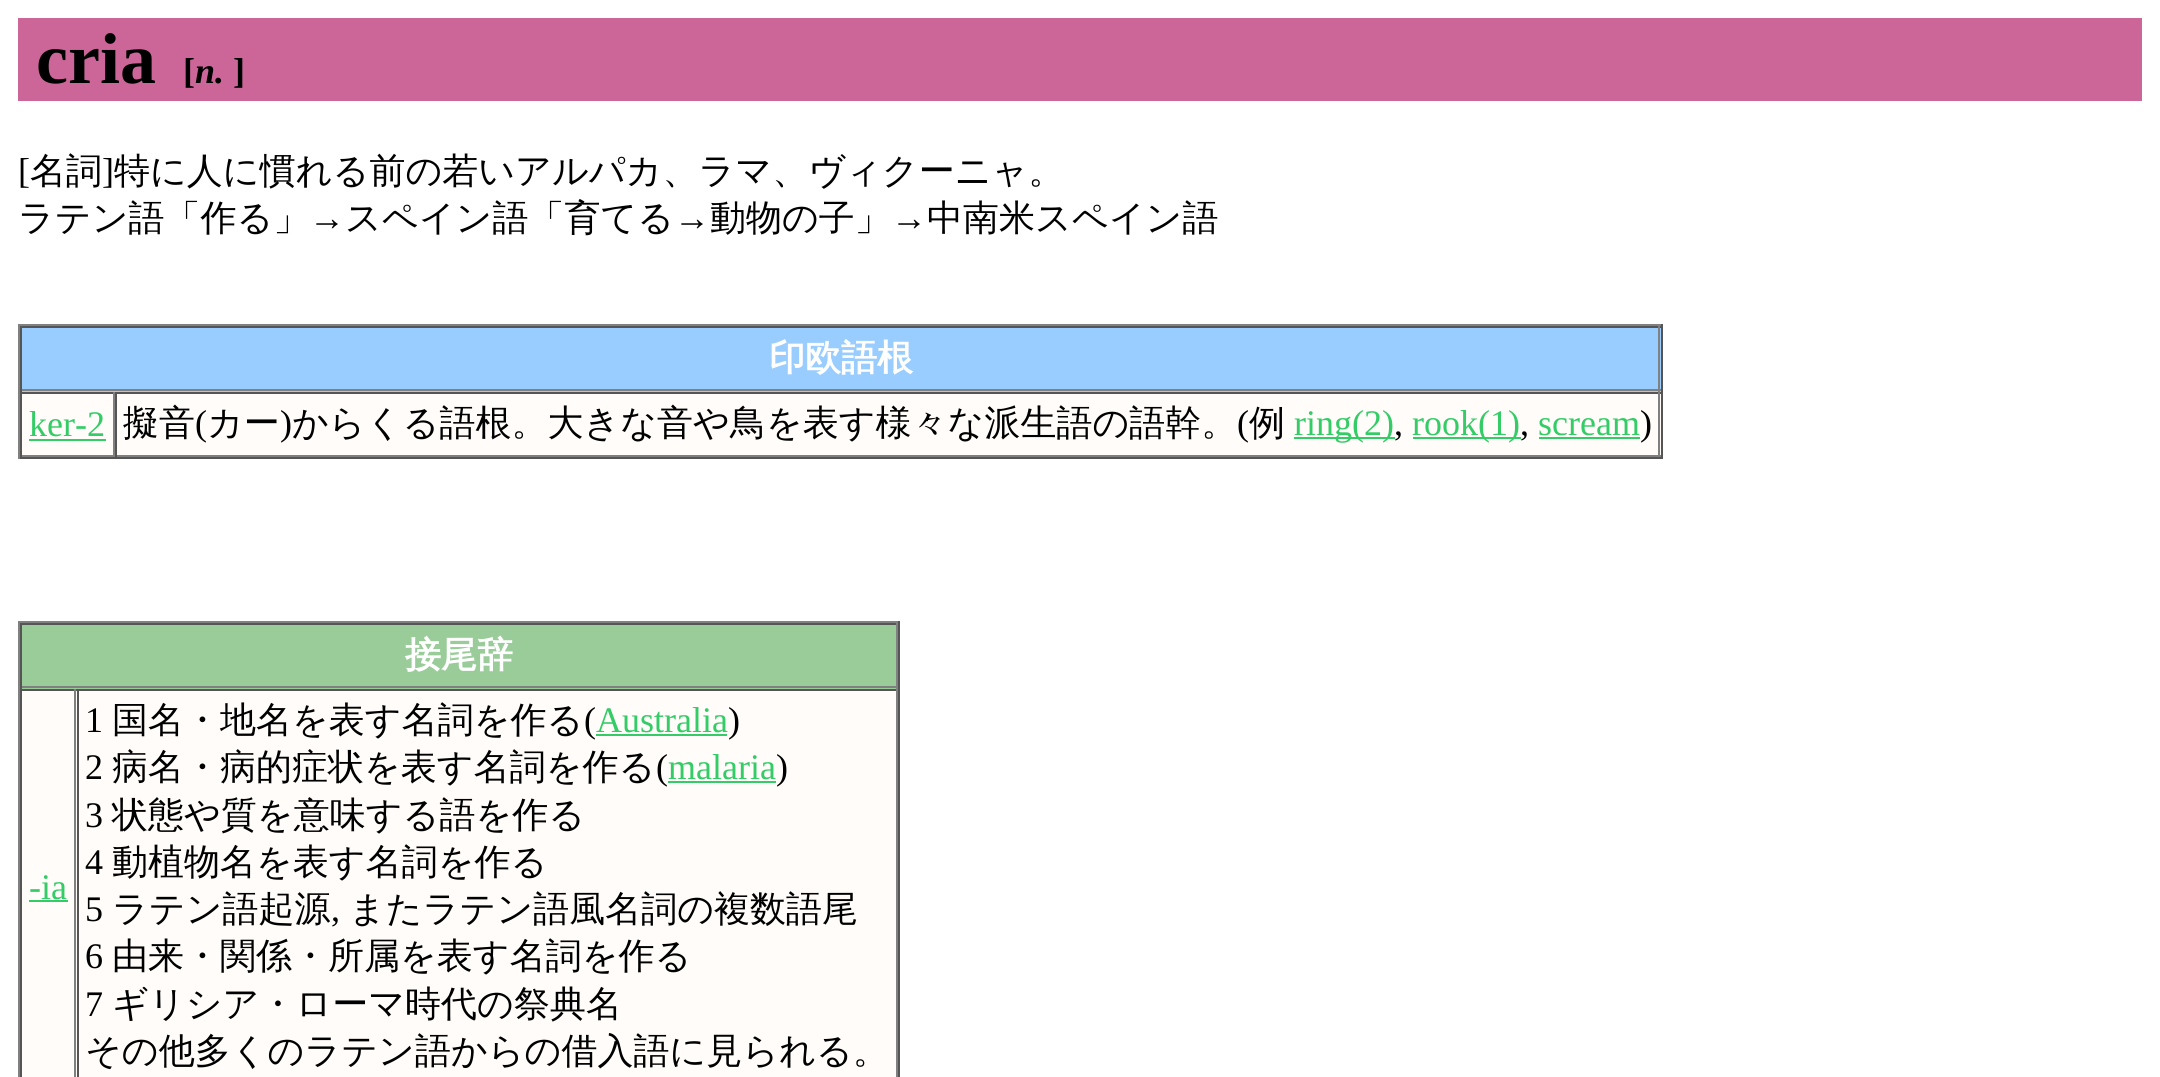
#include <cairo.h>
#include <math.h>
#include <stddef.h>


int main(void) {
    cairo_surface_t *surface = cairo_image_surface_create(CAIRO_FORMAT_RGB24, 2160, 1077);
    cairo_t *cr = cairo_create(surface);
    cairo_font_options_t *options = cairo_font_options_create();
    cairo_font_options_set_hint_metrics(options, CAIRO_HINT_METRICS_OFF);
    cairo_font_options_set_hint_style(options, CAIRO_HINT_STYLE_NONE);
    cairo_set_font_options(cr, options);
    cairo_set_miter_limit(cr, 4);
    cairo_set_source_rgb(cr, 1, 1, 1);
    cairo_paint(cr);
    cairo_set_source_rgb(cr, 0.8, 0.4, 0.6);
    cairo_rectangle(cr, 18, 18, 2124, 83);
    cairo_fill(cr);
    cairo_select_font_face(cr, "Liberation Serif", CAIRO_FONT_SLANT_NORMAL, CAIRO_FONT_WEIGHT_BOLD);
    cairo_set_font_size(cr, 72);
    cairo_set_source_rgb(cr, 0, 0, 0);
    cairo_move_to(cr, 36, 83);
    cairo_show_text(cr, "cria");
    cairo_set_font_size(cr, 36);
    cairo_move_to(cr, 183, 83);
    cairo_show_text(cr, "[");
    cairo_select_font_face(cr, "Liberation Serif", CAIRO_FONT_SLANT_ITALIC, CAIRO_FONT_WEIGHT_BOLD);
    cairo_move_to(cr, 195, 83);
    cairo_show_text(cr, "n.");
    cairo_select_font_face(cr, "Liberation Serif", CAIRO_FONT_SLANT_NORMAL, CAIRO_FONT_WEIGHT_BOLD);
    cairo_move_to(cr, 233, 83);
    cairo_show_text(cr, "]");
    cairo_select_font_face(cr, "Liberation Serif", CAIRO_FONT_SLANT_NORMAL, CAIRO_FONT_WEIGHT_NORMAL);
    cairo_move_to(cr, 18, 183);
    cairo_show_text(cr, "[");
    cairo_select_font_face(cr, "WenQuanYi Zen Hei Medium", CAIRO_FONT_SLANT_NORMAL, CAIRO_FONT_WEIGHT_NORMAL);
    cairo_move_to(cr, 30, 183);
    cairo_show_text(cr, "名詞");
    cairo_select_font_face(cr, "Liberation Serif", CAIRO_FONT_SLANT_NORMAL, CAIRO_FONT_WEIGHT_NORMAL);
    cairo_move_to(cr, 102, 183);
    cairo_show_text(cr, "]");
    cairo_select_font_face(cr, "WenQuanYi Zen Hei Medium", CAIRO_FONT_SLANT_NORMAL, CAIRO_FONT_WEIGHT_NORMAL);
    cairo_move_to(cr, 114, 183);
    cairo_show_text(cr, "特に人に慣れる前の若いアルパカ、ラマ、ヴィクーニャ。");
    cairo_move_to(cr, 18, 230);
    cairo_show_text(cr, "ラテン語「作る」");
    cairo_select_font_face(cr, "Liberation Serif", CAIRO_FONT_SLANT_NORMAL, CAIRO_FONT_WEIGHT_NORMAL);
    cairo_move_to(cr, 309, 230);
    cairo_show_text(cr, "→");
    cairo_select_font_face(cr, "WenQuanYi Zen Hei Medium", CAIRO_FONT_SLANT_NORMAL, CAIRO_FONT_WEIGHT_NORMAL);
    cairo_move_to(cr, 345, 230);
    cairo_show_text(cr, "スペイン語「育てる");
    cairo_select_font_face(cr, "Liberation Serif", CAIRO_FONT_SLANT_NORMAL, CAIRO_FONT_WEIGHT_NORMAL);
    cairo_move_to(cr, 674, 230);
    cairo_show_text(cr, "→");
    cairo_select_font_face(cr, "WenQuanYi Zen Hei Medium", CAIRO_FONT_SLANT_NORMAL, CAIRO_FONT_WEIGHT_NORMAL);
    cairo_move_to(cr, 710, 230);
    cairo_show_text(cr, "動物の子」");
    cairo_select_font_face(cr, "Liberation Serif", CAIRO_FONT_SLANT_NORMAL, CAIRO_FONT_WEIGHT_NORMAL);
    cairo_move_to(cr, 891, 230);
    cairo_show_text(cr, "→");
    cairo_select_font_face(cr, "WenQuanYi Zen Hei Medium", CAIRO_FONT_SLANT_NORMAL, CAIRO_FONT_WEIGHT_NORMAL);
    cairo_move_to(cr, 927, 230);
    cairo_show_text(cr, "中南米スペイン語");
    cairo_set_source_rgb(cr, 1, 0.988, 0.973);
    cairo_rectangle(cr, 22, 394, 1639, 61);
    cairo_fill(cr);
    cairo_set_source_rgb(cr, 0.502, 0.502, 0.502);
    cairo_rectangle(cr, 18, 324, 1645, 2);
    cairo_fill(cr);
    cairo_set_source_rgb(cr, 0.333, 0.333, 0.333);
    cairo_rectangle(cr, 1661, 324, 2, 135);
    cairo_fill(cr);
    cairo_rectangle(cr, 18, 457, 1645, 2);
    cairo_fill(cr);
    cairo_set_source_rgb(cr, 0.502, 0.502, 0.502);
    cairo_rectangle(cr, 18, 324, 2, 135);
    cairo_fill(cr);
    cairo_set_source_rgb(cr, 0.6, 0.8, 1);
    cairo_rectangle(cr, 22, 328, 1639, 64);
    cairo_fill(cr);
    cairo_set_source_rgb(cr, 0.333, 0.333, 0.333);
    cairo_rectangle(cr, 20, 326, 1641, 2);
    cairo_fill(cr);
    cairo_set_source_rgb(cr, 0.502, 0.502, 0.502);
    cairo_rectangle(cr, 1658, 326, 2, 66);
    cairo_fill(cr);
    cairo_rectangle(cr, 20, 389, 1641, 2);
    cairo_fill(cr);
    cairo_set_source_rgb(cr, 0.333, 0.333, 0.333);
    cairo_rectangle(cr, 20, 326, 2, 66);
    cairo_fill(cr);
    cairo_select_font_face(cr, "WenQuanYi Zen Hei", CAIRO_FONT_SLANT_NORMAL, CAIRO_FONT_WEIGHT_BOLD);
    cairo_set_source_rgb(cr, 1, 1, 1);
    cairo_move_to(cr, 769, 370);
    cairo_show_text(cr, "印欧語根");
    cairo_set_source_rgb(cr, 0.333, 0.333, 0.333);
    cairo_rectangle(cr, 20, 392, 1641, 2);
    cairo_fill(cr);
    cairo_set_source_rgb(cr, 0.502, 0.502, 0.502);
    cairo_rectangle(cr, 113, 392, 2, 65);
    cairo_fill(cr);
    cairo_rectangle(cr, 20, 455, 95, 2);
    cairo_fill(cr);
    cairo_set_source_rgb(cr, 0.333, 0.333, 0.333);
    cairo_rectangle(cr, 20, 392, 2, 65);
    cairo_fill(cr);
    cairo_select_font_face(cr, "Liberation Serif", CAIRO_FONT_SLANT_NORMAL, CAIRO_FONT_WEIGHT_NORMAL);
    cairo_set_source_rgb(cr, 0.2, 0.8, 0.4);
    cairo_move_to(cr, 29, 436);
    cairo_show_text(cr, "ker-2");
    cairo_rectangle(cr, 29, 439, 77, 2);
    cairo_fill(cr);
    cairo_set_source_rgb(cr, 0.502, 0.502, 0.502);
    cairo_rectangle(cr, 1658, 392, 2, 65);
    cairo_fill(cr);
    cairo_rectangle(cr, 115, 455, 1546, 2);
    cairo_fill(cr);
    cairo_set_source_rgb(cr, 0.333, 0.333, 0.333);
    cairo_rectangle(cr, 115, 392, 2, 65);
    cairo_fill(cr);
    cairo_select_font_face(cr, "WenQuanYi Zen Hei Medium", CAIRO_FONT_SLANT_NORMAL, CAIRO_FONT_WEIGHT_NORMAL);
    cairo_set_source_rgb(cr, 0, 0, 0);
    cairo_move_to(cr, 123, 435);
    cairo_show_text(cr, "擬音");
    cairo_select_font_face(cr, "Liberation Serif", CAIRO_FONT_SLANT_NORMAL, CAIRO_FONT_WEIGHT_NORMAL);
    cairo_move_to(cr, 195, 435);
    cairo_show_text(cr, "(");
    cairo_select_font_face(cr, "WenQuanYi Zen Hei Medium", CAIRO_FONT_SLANT_NORMAL, CAIRO_FONT_WEIGHT_NORMAL);
    cairo_move_to(cr, 207, 435);
    cairo_show_text(cr, "カー");
    cairo_select_font_face(cr, "Liberation Serif", CAIRO_FONT_SLANT_NORMAL, CAIRO_FONT_WEIGHT_NORMAL);
    cairo_move_to(cr, 280, 435);
    cairo_show_text(cr, ")");
    cairo_select_font_face(cr, "WenQuanYi Zen Hei Medium", CAIRO_FONT_SLANT_NORMAL, CAIRO_FONT_WEIGHT_NORMAL);
    cairo_move_to(cr, 292, 435);
    cairo_show_text(cr, "からくる語根。大きな音や鳥を表す様々な派生語の語幹。");
    cairo_select_font_face(cr, "Liberation Serif", CAIRO_FONT_SLANT_NORMAL, CAIRO_FONT_WEIGHT_NORMAL);
    cairo_move_to(cr, 1237, 435);
    cairo_show_text(cr, "(");
    cairo_select_font_face(cr, "WenQuanYi Zen Hei Medium", CAIRO_FONT_SLANT_NORMAL, CAIRO_FONT_WEIGHT_NORMAL);
    cairo_move_to(cr, 1249, 435);
    cairo_show_text(cr, "例");
    cairo_set_source_rgb(cr, 0.2, 0.8, 0.4);
    cairo_rectangle(cr, 1294, 437, 101, 2);
    cairo_fill(cr);
    cairo_select_font_face(cr, "Liberation Serif", CAIRO_FONT_SLANT_NORMAL, CAIRO_FONT_WEIGHT_NORMAL);
    cairo_move_to(cr, 1294, 435);
    cairo_show_text(cr, "ring(2)");
    cairo_set_source_rgb(cr, 0, 0, 0);
    cairo_move_to(cr, 1394, 435);
    cairo_show_text(cr, ",");
    cairo_set_source_rgb(cr, 0.2, 0.8, 0.4);
    cairo_rectangle(cr, 1413, 437, 108, 2);
    cairo_fill(cr);
    cairo_move_to(cr, 1412, 435);
    cairo_show_text(cr, "rook(1)");
    cairo_set_source_rgb(cr, 0, 0, 0);
    cairo_move_to(cr, 1520, 435);
    cairo_show_text(cr, ",");
    cairo_set_source_rgb(cr, 0.2, 0.8, 0.4);
    cairo_rectangle(cr, 1539, 437, 101, 2);
    cairo_fill(cr);
    cairo_move_to(cr, 1538, 435);
    cairo_show_text(cr, "scream");
    cairo_set_source_rgb(cr, 0, 0, 0);
    cairo_move_to(cr, 1640, 435);
    cairo_show_text(cr, ")");
    cairo_set_source_rgb(cr, 1, 0.988, 0.973);
    cairo_rectangle(cr, 22, 691, 874, 386);
    cairo_fill(cr);
    cairo_set_source_rgb(cr, 0.502, 0.502, 0.502);
    cairo_rectangle(cr, 18, 621, 882, 2);
    cairo_fill(cr);
    cairo_set_source_rgb(cr, 0.333, 0.333, 0.333);
    cairo_rectangle(cr, 898, 621, 2, 456);
    cairo_fill(cr);
    cairo_set_source_rgb(cr, 0.502, 0.502, 0.502);
    cairo_rectangle(cr, 18, 621, 2, 456);
    cairo_fill(cr);
    cairo_set_source_rgb(cr, 0.6, 0.8, 0.6);
    cairo_rectangle(cr, 22, 625, 874, 64);
    cairo_fill(cr);
    cairo_set_source_rgb(cr, 0.333, 0.333, 0.333);
    cairo_rectangle(cr, 20, 623, 878, 2);
    cairo_fill(cr);
    cairo_set_source_rgb(cr, 0.502, 0.502, 0.502);
    cairo_rectangle(cr, 896, 623, 2, 66);
    cairo_fill(cr);
    cairo_rectangle(cr, 20, 686, 878, 2);
    cairo_fill(cr);
    cairo_set_source_rgb(cr, 0.333, 0.333, 0.333);
    cairo_rectangle(cr, 20, 623, 2, 66);
    cairo_fill(cr);
    cairo_select_font_face(cr, "WenQuanYi Zen Hei", CAIRO_FONT_SLANT_NORMAL, CAIRO_FONT_WEIGHT_BOLD);
    cairo_set_source_rgb(cr, 1, 1, 1);
    cairo_move_to(cr, 405, 667);
    cairo_show_text(cr, "接尾辞");
    cairo_set_source_rgb(cr, 0.333, 0.333, 0.333);
    cairo_rectangle(cr, 20, 689, 878, 2);
    cairo_fill(cr);
    cairo_set_source_rgb(cr, 0.502, 0.502, 0.502);
    cairo_rectangle(cr, 74, 689, 2, 388);
    cairo_fill(cr);
    cairo_set_source_rgb(cr, 0.333, 0.333, 0.333);
    cairo_rectangle(cr, 20, 689, 2, 388);
    cairo_fill(cr);
    cairo_select_font_face(cr, "Liberation Serif", CAIRO_FONT_SLANT_NORMAL, CAIRO_FONT_WEIGHT_NORMAL);
    cairo_set_source_rgb(cr, 0.2, 0.8, 0.4);
    cairo_move_to(cr, 29, 899);
    cairo_show_text(cr, "-ia");
    cairo_rectangle(cr, 29, 900, 39, 2);
    cairo_fill(cr);
    cairo_set_source_rgb(cr, 0.502, 0.502, 0.502);
    cairo_rectangle(cr, 896, 689, 2, 388);
    cairo_fill(cr);
    cairo_set_source_rgb(cr, 0.333, 0.333, 0.333);
    cairo_rectangle(cr, 77, 689, 2, 388);
    cairo_fill(cr);
    cairo_set_source_rgb(cr, 0, 0, 0);
    cairo_move_to(cr, 85, 732);
    cairo_show_text(cr, "1");
    cairo_select_font_face(cr, "WenQuanYi Zen Hei Medium", CAIRO_FONT_SLANT_NORMAL, CAIRO_FONT_WEIGHT_NORMAL);
    cairo_move_to(cr, 112, 732);
    cairo_show_text(cr, "国名・地名を表す名詞を作る");
    cairo_select_font_face(cr, "Liberation Serif", CAIRO_FONT_SLANT_NORMAL, CAIRO_FONT_WEIGHT_NORMAL);
    cairo_move_to(cr, 584, 732);
    cairo_show_text(cr, "(");
    cairo_set_source_rgb(cr, 0.2, 0.8, 0.4);
    cairo_rectangle(cr, 596, 734, 131, 2);
    cairo_fill(cr);
    cairo_move_to(cr, 596, 732);
    cairo_show_text(cr, "Australia");
    cairo_set_source_rgb(cr, 0, 0, 0);
    cairo_move_to(cr, 728, 732);
    cairo_show_text(cr, ")");
    cairo_move_to(cr, 85, 779);
    cairo_show_text(cr, "2");
    cairo_select_font_face(cr, "WenQuanYi Zen Hei Medium", CAIRO_FONT_SLANT_NORMAL, CAIRO_FONT_WEIGHT_NORMAL);
    cairo_move_to(cr, 112, 779);
    cairo_show_text(cr, "病名・病的症状を表す名詞を作る");
    cairo_select_font_face(cr, "Liberation Serif", CAIRO_FONT_SLANT_NORMAL, CAIRO_FONT_WEIGHT_NORMAL);
    cairo_move_to(cr, 656, 779);
    cairo_show_text(cr, "(");
    cairo_set_source_rgb(cr, 0.2, 0.8, 0.4);
    cairo_move_to(cr, 668, 779);
    cairo_show_text(cr, "malaria");
    cairo_set_source_rgb(cr, 0, 0, 0);
    cairo_move_to(cr, 776, 779);
    cairo_show_text(cr, ")");
    cairo_set_source_rgb(cr, 0.2, 0.8, 0.4);
    cairo_rectangle(cr, 668, 781, 108, 2);
    cairo_fill(cr);
    cairo_set_source_rgb(cr, 0, 0, 0);
    cairo_move_to(cr, 85, 827);
    cairo_show_text(cr, "3");
    cairo_select_font_face(cr, "WenQuanYi Zen Hei Medium", CAIRO_FONT_SLANT_NORMAL, CAIRO_FONT_WEIGHT_NORMAL);
    cairo_move_to(cr, 112, 827);
    cairo_show_text(cr, "状態や質を意味する語を作る");
    cairo_select_font_face(cr, "Liberation Serif", CAIRO_FONT_SLANT_NORMAL, CAIRO_FONT_WEIGHT_NORMAL);
    cairo_move_to(cr, 85, 874);
    cairo_show_text(cr, "4");
    cairo_select_font_face(cr, "WenQuanYi Zen Hei Medium", CAIRO_FONT_SLANT_NORMAL, CAIRO_FONT_WEIGHT_NORMAL);
    cairo_move_to(cr, 112, 874);
    cairo_show_text(cr, "動植物名を表す名詞を作る");
    cairo_select_font_face(cr, "Liberation Serif", CAIRO_FONT_SLANT_NORMAL, CAIRO_FONT_WEIGHT_NORMAL);
    cairo_move_to(cr, 85, 921);
    cairo_show_text(cr, "5");
    cairo_select_font_face(cr, "WenQuanYi Zen Hei Medium", CAIRO_FONT_SLANT_NORMAL, CAIRO_FONT_WEIGHT_NORMAL);
    cairo_move_to(cr, 112, 921);
    cairo_show_text(cr, "ラテン語起源");
    cairo_select_font_face(cr, "Liberation Serif", CAIRO_FONT_SLANT_NORMAL, CAIRO_FONT_WEIGHT_NORMAL);
    cairo_move_to(cr, 331, 921);
    cairo_show_text(cr, ",");
    cairo_select_font_face(cr, "WenQuanYi Zen Hei Medium", CAIRO_FONT_SLANT_NORMAL, CAIRO_FONT_WEIGHT_NORMAL);
    cairo_move_to(cr, 349, 921);
    cairo_show_text(cr, "またラテン語風名詞の複数語尾");
    cairo_select_font_face(cr, "Liberation Serif", CAIRO_FONT_SLANT_NORMAL, CAIRO_FONT_WEIGHT_NORMAL);
    cairo_move_to(cr, 85, 968);
    cairo_show_text(cr, "6");
    cairo_select_font_face(cr, "WenQuanYi Zen Hei Medium", CAIRO_FONT_SLANT_NORMAL, CAIRO_FONT_WEIGHT_NORMAL);
    cairo_move_to(cr, 112, 968);
    cairo_show_text(cr, "由来・関係・所属を表す名詞を作る");
    cairo_select_font_face(cr, "Liberation Serif", CAIRO_FONT_SLANT_NORMAL, CAIRO_FONT_WEIGHT_NORMAL);
    cairo_move_to(cr, 85, 1016);
    cairo_show_text(cr, "7");
    cairo_select_font_face(cr, "WenQuanYi Zen Hei Medium", CAIRO_FONT_SLANT_NORMAL, CAIRO_FONT_WEIGHT_NORMAL);
    cairo_move_to(cr, 112, 1016);
    cairo_show_text(cr, "ギリシア・ローマ時代の祭典名");
    cairo_move_to(cr, 85, 1063);
    cairo_show_text(cr, "その他多くのラテン語からの借入語に見られる。");
    cairo_surface_write_to_png(surface, "page.png");
    cairo_font_options_destroy(options);
    cairo_destroy(cr);
    cairo_surface_destroy(surface);
    return 0;
}
